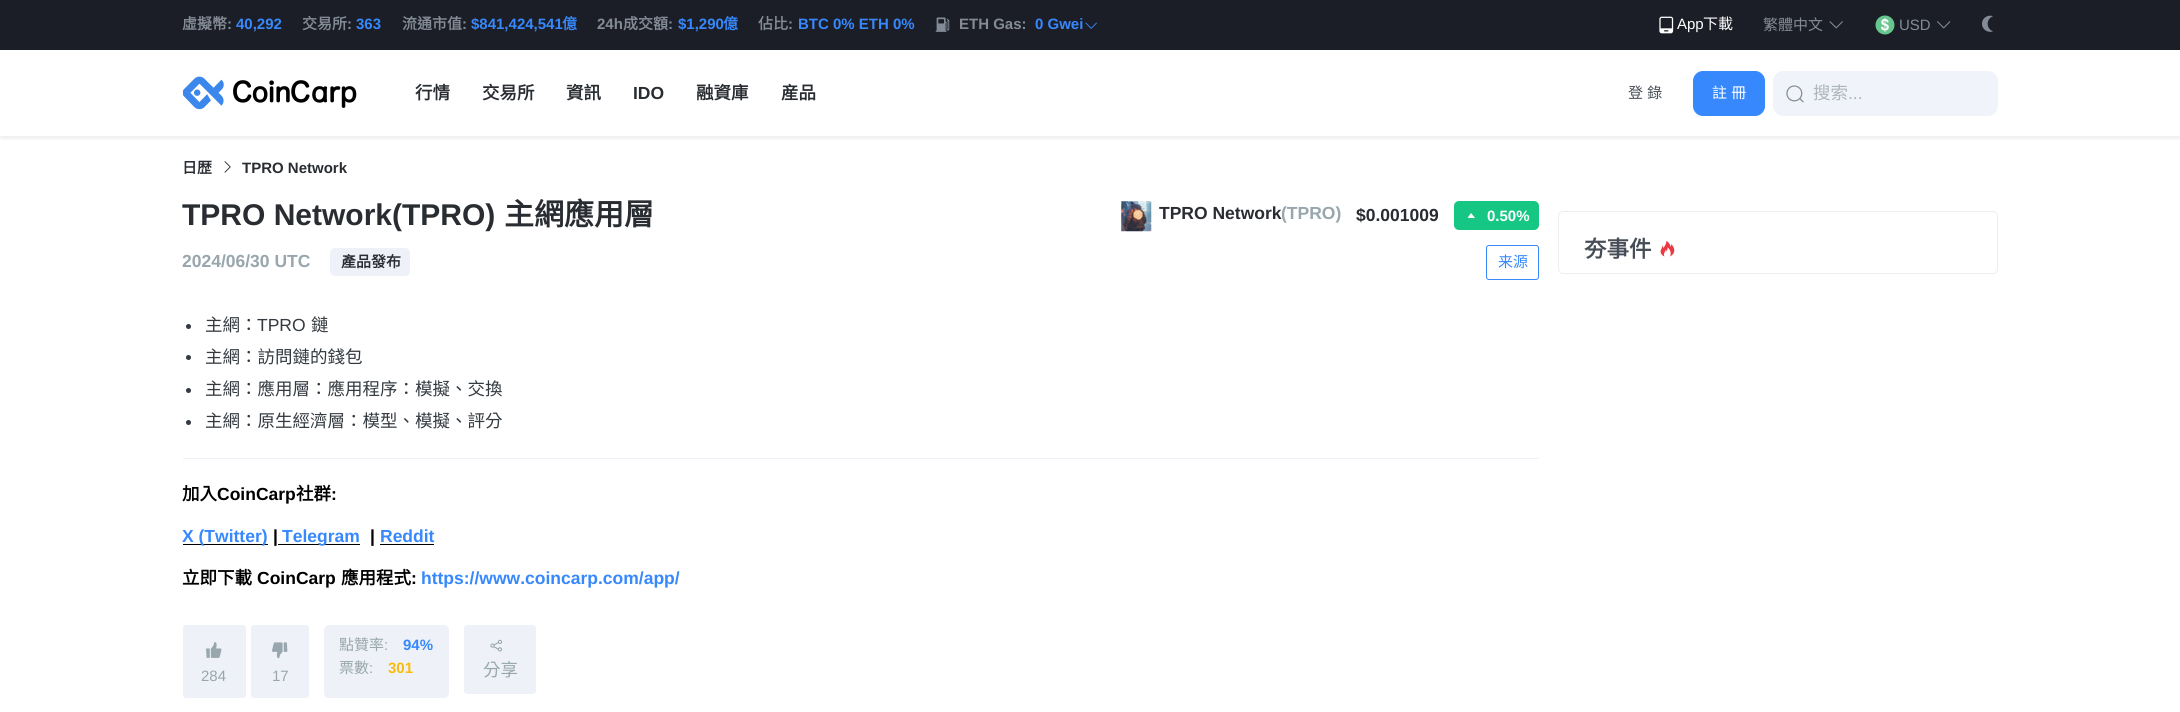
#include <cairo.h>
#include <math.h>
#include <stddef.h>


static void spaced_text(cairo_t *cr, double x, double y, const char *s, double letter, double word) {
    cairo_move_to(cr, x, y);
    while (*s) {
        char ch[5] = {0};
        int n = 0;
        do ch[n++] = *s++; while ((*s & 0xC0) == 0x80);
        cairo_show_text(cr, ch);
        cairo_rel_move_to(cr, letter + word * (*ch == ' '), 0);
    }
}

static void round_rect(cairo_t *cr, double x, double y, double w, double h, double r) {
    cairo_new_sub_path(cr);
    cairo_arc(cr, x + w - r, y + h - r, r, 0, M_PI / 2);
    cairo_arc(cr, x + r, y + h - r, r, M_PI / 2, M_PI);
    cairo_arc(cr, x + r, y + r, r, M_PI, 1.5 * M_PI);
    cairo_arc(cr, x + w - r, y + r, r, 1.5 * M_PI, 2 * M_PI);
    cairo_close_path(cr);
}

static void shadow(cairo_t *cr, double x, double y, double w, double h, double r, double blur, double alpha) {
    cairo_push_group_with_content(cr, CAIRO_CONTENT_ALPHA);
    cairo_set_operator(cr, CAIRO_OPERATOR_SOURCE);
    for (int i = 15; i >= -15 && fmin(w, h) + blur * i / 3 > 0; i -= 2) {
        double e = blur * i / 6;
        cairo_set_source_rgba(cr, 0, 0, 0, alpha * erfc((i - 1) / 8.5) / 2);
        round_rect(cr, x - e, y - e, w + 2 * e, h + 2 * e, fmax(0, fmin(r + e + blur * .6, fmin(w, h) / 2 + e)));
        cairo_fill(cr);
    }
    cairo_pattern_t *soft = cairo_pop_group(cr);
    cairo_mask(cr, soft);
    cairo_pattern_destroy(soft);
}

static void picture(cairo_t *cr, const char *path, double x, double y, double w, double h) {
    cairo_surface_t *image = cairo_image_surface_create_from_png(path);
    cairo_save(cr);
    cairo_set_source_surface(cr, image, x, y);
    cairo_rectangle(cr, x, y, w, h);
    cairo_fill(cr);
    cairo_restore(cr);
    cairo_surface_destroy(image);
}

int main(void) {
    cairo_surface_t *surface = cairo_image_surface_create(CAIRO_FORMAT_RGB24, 2180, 712);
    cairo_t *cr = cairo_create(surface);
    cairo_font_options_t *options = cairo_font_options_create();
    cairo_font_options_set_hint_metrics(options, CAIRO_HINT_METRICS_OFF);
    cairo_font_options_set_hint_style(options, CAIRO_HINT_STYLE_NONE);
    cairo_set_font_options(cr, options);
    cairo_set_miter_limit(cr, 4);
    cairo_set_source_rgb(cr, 1, 1, 1);
    cairo_paint(cr);
    cairo_set_source_rgb(cr, 0.11, 0.118, 0.153);
    cairo_rectangle(cr, 0, 0, 2180, 50);
    cairo_fill(cr);
    cairo_select_font_face(cr, "Noto Sans CJK TC", CAIRO_FONT_SLANT_NORMAL, CAIRO_FONT_WEIGHT_BOLD);
    cairo_set_font_size(cr, 15);
    cairo_set_source_rgb(cr, 0.514, 0.549, 0.588);
    cairo_move_to(cr, 182, 29);
    cairo_show_text(cr, "虛擬幣");
    cairo_select_font_face(cr, "Liberation Sans", CAIRO_FONT_SLANT_NORMAL, CAIRO_FONT_WEIGHT_BOLD);
    cairo_move_to(cr, 227, 29);
    cairo_show_text(cr, ":");
    cairo_set_source_rgb(cr, 0.212, 0.533, 0.988);
    cairo_move_to(cr, 236, 29);
    cairo_show_text(cr, "40,292");
    cairo_select_font_face(cr, "Noto Sans CJK TC", CAIRO_FONT_SLANT_NORMAL, CAIRO_FONT_WEIGHT_BOLD);
    cairo_set_source_rgb(cr, 0.514, 0.549, 0.588);
    cairo_move_to(cr, 302, 29);
    cairo_show_text(cr, "交易所");
    cairo_select_font_face(cr, "Liberation Sans", CAIRO_FONT_SLANT_NORMAL, CAIRO_FONT_WEIGHT_BOLD);
    cairo_move_to(cr, 347, 29);
    cairo_show_text(cr, ":");
    cairo_set_source_rgb(cr, 0.212, 0.533, 0.988);
    cairo_move_to(cr, 356, 29);
    cairo_show_text(cr, "363");
    cairo_select_font_face(cr, "Noto Sans CJK TC", CAIRO_FONT_SLANT_NORMAL, CAIRO_FONT_WEIGHT_BOLD);
    cairo_set_source_rgb(cr, 0.514, 0.549, 0.588);
    cairo_move_to(cr, 402, 29);
    cairo_show_text(cr, "流通市值");
    cairo_select_font_face(cr, "Liberation Sans", CAIRO_FONT_SLANT_NORMAL, CAIRO_FONT_WEIGHT_BOLD);
    cairo_move_to(cr, 462, 29);
    cairo_show_text(cr, ":");
    cairo_set_source_rgb(cr, 0.212, 0.533, 0.988);
    cairo_move_to(cr, 471, 29);
    cairo_show_text(cr, "$841,424,541");
    cairo_select_font_face(cr, "Noto Sans CJK TC", CAIRO_FONT_SLANT_NORMAL, CAIRO_FONT_WEIGHT_BOLD);
    cairo_move_to(cr, 562, 29);
    cairo_show_text(cr, "億");
    cairo_select_font_face(cr, "Liberation Sans", CAIRO_FONT_SLANT_NORMAL, CAIRO_FONT_WEIGHT_BOLD);
    cairo_set_source_rgb(cr, 0.514, 0.549, 0.588);
    cairo_move_to(cr, 597, 29);
    cairo_show_text(cr, "24h");
    cairo_select_font_face(cr, "Noto Sans CJK TC", CAIRO_FONT_SLANT_NORMAL, CAIRO_FONT_WEIGHT_BOLD);
    cairo_move_to(cr, 623, 29);
    cairo_show_text(cr, "成交額");
    cairo_select_font_face(cr, "Liberation Sans", CAIRO_FONT_SLANT_NORMAL, CAIRO_FONT_WEIGHT_BOLD);
    cairo_move_to(cr, 668, 29);
    cairo_show_text(cr, ":");
    cairo_set_source_rgb(cr, 0.212, 0.533, 0.988);
    cairo_move_to(cr, 678, 29);
    cairo_show_text(cr, "$1,290");
    cairo_select_font_face(cr, "Noto Sans CJK TC", CAIRO_FONT_SLANT_NORMAL, CAIRO_FONT_WEIGHT_BOLD);
    cairo_move_to(cr, 723, 29);
    cairo_show_text(cr, "億");
    cairo_set_source_rgb(cr, 0.514, 0.549, 0.588);
    cairo_move_to(cr, 758, 29);
    cairo_show_text(cr, "佔比");
    cairo_select_font_face(cr, "Liberation Sans", CAIRO_FONT_SLANT_NORMAL, CAIRO_FONT_WEIGHT_BOLD);
    cairo_move_to(cr, 788, 29);
    cairo_show_text(cr, ":");
    cairo_set_source_rgb(cr, 0.212, 0.533, 0.988);
    cairo_move_to(cr, 798, 29);
    cairo_show_text(cr, "BTC 0% ETH 0%");
    picture(cr, "img1.png", 935, 17, 15, 15);
    cairo_set_source_rgb(cr, 0.514, 0.549, 0.588);
    cairo_move_to(cr, 959, 29);
    cairo_show_text(cr, "ETH Gas:");
    cairo_set_source_rgb(cr, 0.212, 0.533, 0.988);
    cairo_move_to(cr, 1035, 29);
    cairo_show_text(cr, "0 Gwei");
    picture(cr, "img2.png", 1085, 22, 12, 7);
    picture(cr, "img3.png", 1659, 16, 15, 18);
    cairo_select_font_face(cr, "Liberation Sans", CAIRO_FONT_SLANT_NORMAL, CAIRO_FONT_WEIGHT_NORMAL);
    cairo_set_source_rgb(cr, 1, 1, 1);
    cairo_move_to(cr, 1677, 29);
    cairo_show_text(cr, "App");
    cairo_select_font_face(cr, "Noto Sans CJK TC", CAIRO_FONT_SLANT_NORMAL, CAIRO_FONT_WEIGHT_NORMAL);
    cairo_move_to(cr, 1703, 29);
    cairo_show_text(cr, "下載");
    cairo_set_source_rgb(cr, 0.514, 0.549, 0.588);
    cairo_move_to(cr, 1763, 30);
    cairo_show_text(cr, "繁體中文");
    picture(cr, "img4.png", 1829, 21, 14, 8);
    picture(cr, "img5.png", 1875, 15, 20, 20);
    cairo_select_font_face(cr, "Liberation Sans", CAIRO_FONT_SLANT_NORMAL, CAIRO_FONT_WEIGHT_NORMAL);
    cairo_move_to(cr, 1899, 30);
    cairo_show_text(cr, "USD");
    picture(cr, "img6.png", 1937, 21, 14, 8);
    picture(cr, "img7.png", 1982, 15, 11, 17);
    cairo_save(cr);
    cairo_rectangle(cr, 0, 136, 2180, 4);
    cairo_clip(cr);
    cairo_set_source_rgb(cr, 0, 0, 0);
    shadow(cr, 0, 53, 2180, 86, 0, 2.5, 0.07);
    cairo_restore(cr);
    picture(cr, "img8.png", 183, 76, 174, 34);
    cairo_select_font_face(cr, "Noto Sans CJK TC", CAIRO_FONT_SLANT_NORMAL, CAIRO_FONT_WEIGHT_BOLD);
    cairo_set_font_size(cr, 17.5);
    cairo_set_source_rgb(cr, 0.161, 0.176, 0.196);
    cairo_move_to(cr, 415, 99);
    cairo_show_text(cr, "行情");
    cairo_move_to(cr, 482, 99);
    cairo_show_text(cr, "交易所");
    cairo_move_to(cr, 566, 99);
    cairo_show_text(cr, "資訊");
    cairo_select_font_face(cr, "Liberation Sans", CAIRO_FONT_SLANT_NORMAL, CAIRO_FONT_WEIGHT_BOLD);
    cairo_move_to(cr, 633, 99);
    cairo_show_text(cr, "IDO");
    cairo_select_font_face(cr, "Noto Sans CJK TC", CAIRO_FONT_SLANT_NORMAL, CAIRO_FONT_WEIGHT_BOLD);
    cairo_move_to(cr, 696, 99);
    cairo_show_text(cr, "融資庫");
    cairo_move_to(cr, 781, 99);
    cairo_show_text(cr, "産品");
    cairo_select_font_face(cr, "Noto Sans CJK TC", CAIRO_FONT_SLANT_NORMAL, CAIRO_FONT_WEIGHT_NORMAL);
    cairo_set_font_size(cr, 15);
    cairo_set_source_rgb(cr, 0.278, 0.302, 0.337);
    spaced_text(cr, 1628, 98, "登 錄", 0, 1);
    cairo_set_source_rgb(cr, 0.212, 0.533, 0.988);
    round_rect(cr, 1693.5, 71.5, 71, 44, 9.5);
    cairo_fill_preserve(cr);
    cairo_set_line_width(cr, 1);
    cairo_stroke(cr);
    cairo_set_source_rgb(cr, 1, 1, 1);
    spaced_text(cr, 1712, 98, "註 冊", 0, 1);
    cairo_set_source_rgb(cr, 0.945, 0.953, 0.98);
    round_rect(cr, 1773, 71, 225, 45, 10);
    cairo_fill(cr);
    picture(cr, "img9.png", 1786, 85, 18, 18);
    cairo_set_font_size(cr, 17.5);
    cairo_set_source_rgb(cr, 0.678, 0.71, 0.741);
    cairo_move_to(cr, 1813, 99);
    cairo_show_text(cr, "搜索");
    cairo_select_font_face(cr, "Liberation Sans", CAIRO_FONT_SLANT_NORMAL, CAIRO_FONT_WEIGHT_NORMAL);
    cairo_move_to(cr, 1848, 99);
    cairo_show_text(cr, "...");
    cairo_select_font_face(cr, "Noto Sans CJK TC", CAIRO_FONT_SLANT_NORMAL, CAIRO_FONT_WEIGHT_BOLD);
    cairo_set_font_size(cr, 15);
    cairo_set_source_rgb(cr, 0.161, 0.176, 0.196);
    cairo_move_to(cr, 182, 173);
    cairo_show_text(cr, "日歴");
    picture(cr, "img10.png", 224, 161, 7, 12);
    cairo_select_font_face(cr, "Liberation Sans", CAIRO_FONT_SLANT_NORMAL, CAIRO_FONT_WEIGHT_BOLD);
    cairo_move_to(cr, 242, 173);
    cairo_show_text(cr, "TPRO Network");
    cairo_set_font_size(cr, 30);
    cairo_move_to(cr, 182, 225);
    cairo_show_text(cr, "TPRO Network(TPRO)");
    cairo_select_font_face(cr, "Noto Sans CJK TC", CAIRO_FONT_SLANT_NORMAL, CAIRO_FONT_WEIGHT_BOLD);
    cairo_move_to(cr, 504, 225);
    cairo_show_text(cr, "主網應用層");
    picture(cr, "img11.png", 1121, 201, 31, 31);
    cairo_select_font_face(cr, "Liberation Sans", CAIRO_FONT_SLANT_NORMAL, CAIRO_FONT_WEIGHT_BOLD);
    cairo_set_font_size(cr, 17.5);
    cairo_move_to(cr, 1159, 219);
    cairo_show_text(cr, "TPRO Network");
    cairo_set_source_rgb(cr, 0.596, 0.651, 0.678);
    cairo_move_to(cr, 1281, 219);
    cairo_show_text(cr, "(TPRO)");
    cairo_set_source_rgb(cr, 0.161, 0.176, 0.196);
    cairo_move_to(cr, 1356, 221);
    cairo_show_text(cr, "$0.001009");
    cairo_set_source_rgb(cr, 0.086, 0.78, 0.518);
    round_rect(cr, 1454, 201, 85, 29, 5);
    cairo_fill(cr);
    cairo_set_source_rgb(cr, 1, 1, 1);
    cairo_new_path(cr);
    cairo_move_to(cr, 1471, 213);
    cairo_line_to(cr, 1475, 218);
    cairo_line_to(cr, 1467.5, 218);
    cairo_close_path(cr);
    cairo_fill(cr);
    cairo_set_font_size(cr, 15);
    cairo_move_to(cr, 1487, 221);
    cairo_show_text(cr, "0.50%");
    cairo_set_font_size(cr, 17.5);
    cairo_set_source_rgb(cr, 0.596, 0.651, 0.678);
    cairo_move_to(cr, 182, 267);
    cairo_show_text(cr, "2024/06/30 UTC");
    cairo_set_source_rgb(cr, 0.933, 0.949, 0.969);
    round_rect(cr, 330, 248, 80, 28, 5);
    cairo_fill(cr);
    cairo_select_font_face(cr, "Noto Sans CJK TC", CAIRO_FONT_SLANT_NORMAL, CAIRO_FONT_WEIGHT_BOLD);
    cairo_set_font_size(cr, 15);
    cairo_set_source_rgb(cr, 0.161, 0.176, 0.196);
    cairo_move_to(cr, 341, 267);
    cairo_show_text(cr, "產品發布");
    round_rect(cr, 1486.5, 245.5, 52, 34, 2.5);
    cairo_set_source_rgb(cr, 0.212, 0.533, 0.988);
    cairo_stroke(cr);
    cairo_select_font_face(cr, "Noto Sans CJK TC", CAIRO_FONT_SLANT_NORMAL, CAIRO_FONT_WEIGHT_NORMAL);
    cairo_move_to(cr, 1498, 267);
    cairo_show_text(cr, "来源");
    cairo_set_source_rgb(cr, 0.204, 0.227, 0.251);
    cairo_new_path(cr);
    cairo_arc(cr, 188.5, 326.5, 2.5, 0, 2 * M_PI);
    cairo_fill(cr);
    cairo_set_font_size(cr, 17.5);
    cairo_move_to(cr, 205, 331);
    cairo_show_text(cr, "主網：");
    cairo_select_font_face(cr, "Liberation Sans", CAIRO_FONT_SLANT_NORMAL, CAIRO_FONT_WEIGHT_NORMAL);
    cairo_move_to(cr, 257, 331);
    cairo_show_text(cr, "TPRO");
    cairo_select_font_face(cr, "Noto Sans CJK TC", CAIRO_FONT_SLANT_NORMAL, CAIRO_FONT_WEIGHT_NORMAL);
    cairo_move_to(cr, 311, 331);
    cairo_show_text(cr, "鏈");
    cairo_new_path(cr);
    cairo_arc(cr, 188.5, 357.5, 2.5, 0, 2 * M_PI);
    cairo_fill(cr);
    cairo_move_to(cr, 205, 363);
    cairo_show_text(cr, "主網：訪問鏈的錢包");
    cairo_new_path(cr);
    cairo_arc(cr, 188.5, 390.5, 2.5, 0, 2 * M_PI);
    cairo_fill(cr);
    cairo_move_to(cr, 205, 395);
    cairo_show_text(cr, "主網：應用層：應用程序：模擬、交換");
    cairo_new_path(cr);
    cairo_arc(cr, 188.5, 422.5, 2.5, 0, 2 * M_PI);
    cairo_fill(cr);
    cairo_move_to(cr, 205, 427);
    cairo_show_text(cr, "主網：原生經濟層：模型、模擬、評分");
    cairo_set_source_rgb(cr, 0.933, 0.949, 0.969);
    cairo_rectangle(cr, 183, 458, 1356, 1);
    cairo_fill(cr);
    cairo_select_font_face(cr, "Noto Sans CJK TC", CAIRO_FONT_SLANT_NORMAL, CAIRO_FONT_WEIGHT_BOLD);
    cairo_set_source_rgb(cr, 0, 0, 0);
    cairo_move_to(cr, 182, 500);
    cairo_show_text(cr, "加入");
    cairo_select_font_face(cr, "Liberation Sans", CAIRO_FONT_SLANT_NORMAL, CAIRO_FONT_WEIGHT_BOLD);
    cairo_move_to(cr, 217, 500);
    cairo_show_text(cr, "CoinCarp");
    cairo_select_font_face(cr, "Noto Sans CJK TC", CAIRO_FONT_SLANT_NORMAL, CAIRO_FONT_WEIGHT_BOLD);
    cairo_move_to(cr, 296, 500);
    cairo_show_text(cr, "社群");
    cairo_select_font_face(cr, "Liberation Sans", CAIRO_FONT_SLANT_NORMAL, CAIRO_FONT_WEIGHT_BOLD);
    cairo_move_to(cr, 331, 500);
    cairo_show_text(cr, ":");
    cairo_rectangle(cr, 183, 544, 85, 1);
    cairo_fill(cr);
    cairo_set_source_rgb(cr, 0.212, 0.533, 0.988);
    cairo_move_to(cr, 182, 542);
    cairo_show_text(cr, "X (Twitter)");
    cairo_set_source_rgb(cr, 0, 0, 0);
    cairo_move_to(cr, 273, 542);
    cairo_show_text(cr, "|");
    cairo_rectangle(cr, 278, 544, 82, 1);
    cairo_fill(cr);
    cairo_set_source_rgb(cr, 0.212, 0.533, 0.988);
    cairo_move_to(cr, 282, 542);
    cairo_show_text(cr, "Telegram");
    cairo_set_source_rgb(cr, 0, 0, 0);
    cairo_move_to(cr, 370, 542);
    cairo_show_text(cr, "|");
    cairo_set_source_rgb(cr, 0.212, 0.533, 0.988);
    cairo_move_to(cr, 380, 542);
    cairo_show_text(cr, "Reddit");
    cairo_set_source_rgb(cr, 0, 0, 0);
    cairo_rectangle(cr, 380, 544, 54, 1);
    cairo_fill(cr);
    cairo_select_font_face(cr, "Noto Sans CJK TC", CAIRO_FONT_SLANT_NORMAL, CAIRO_FONT_WEIGHT_BOLD);
    cairo_move_to(cr, 182, 584);
    cairo_show_text(cr, "立即下載");
    cairo_select_font_face(cr, "Liberation Sans", CAIRO_FONT_SLANT_NORMAL, CAIRO_FONT_WEIGHT_BOLD);
    cairo_move_to(cr, 257, 584);
    cairo_show_text(cr, "CoinCarp");
    cairo_select_font_face(cr, "Noto Sans CJK TC", CAIRO_FONT_SLANT_NORMAL, CAIRO_FONT_WEIGHT_BOLD);
    cairo_move_to(cr, 341, 584);
    cairo_show_text(cr, "應用程式");
    cairo_select_font_face(cr, "Liberation Sans", CAIRO_FONT_SLANT_NORMAL, CAIRO_FONT_WEIGHT_BOLD);
    cairo_move_to(cr, 411, 584);
    cairo_show_text(cr, ":");
    cairo_set_source_rgb(cr, 0.212, 0.533, 0.988);
    cairo_move_to(cr, 421, 584);
    cairo_show_text(cr, "https://www.coincarp.com/app/");
    cairo_set_source_rgb(cr, 0.933, 0.949, 0.969);
    round_rect(cr, 183.5, 625.5, 62, 72, 2.5);
    cairo_fill_preserve(cr);
    cairo_stroke(cr);
    picture(cr, "img12.png", 206, 642, 16, 16);
    cairo_select_font_face(cr, "Liberation Sans", CAIRO_FONT_SLANT_NORMAL, CAIRO_FONT_WEIGHT_NORMAL);
    cairo_set_font_size(cr, 15);
    cairo_set_source_rgb(cr, 0.596, 0.651, 0.678);
    cairo_move_to(cr, 201, 681);
    cairo_show_text(cr, "284");
    cairo_set_source_rgb(cr, 0.933, 0.949, 0.969);
    round_rect(cr, 251.5, 625.5, 57, 72, 2.5);
    cairo_fill_preserve(cr);
    cairo_stroke(cr);
    picture(cr, "img13.png", 272, 642, 16, 17);
    cairo_set_source_rgb(cr, 0.596, 0.651, 0.678);
    cairo_move_to(cr, 272, 681);
    cairo_show_text(cr, "17");
    cairo_set_source_rgb(cr, 0.933, 0.949, 0.969);
    round_rect(cr, 324, 625, 125, 73, 5);
    cairo_fill(cr);
    cairo_select_font_face(cr, "Noto Sans CJK TC", CAIRO_FONT_SLANT_NORMAL, CAIRO_FONT_WEIGHT_NORMAL);
    cairo_set_source_rgb(cr, 0.596, 0.651, 0.678);
    cairo_move_to(cr, 339, 650);
    cairo_show_text(cr, "點贊率");
    cairo_select_font_face(cr, "Liberation Sans", CAIRO_FONT_SLANT_NORMAL, CAIRO_FONT_WEIGHT_NORMAL);
    cairo_move_to(cr, 384, 650);
    cairo_show_text(cr, ":");
    cairo_select_font_face(cr, "Liberation Sans", CAIRO_FONT_SLANT_NORMAL, CAIRO_FONT_WEIGHT_BOLD);
    cairo_set_source_rgb(cr, 0.212, 0.533, 0.988);
    cairo_move_to(cr, 403, 650);
    cairo_show_text(cr, "94%");
    cairo_select_font_face(cr, "Noto Sans CJK TC", CAIRO_FONT_SLANT_NORMAL, CAIRO_FONT_WEIGHT_NORMAL);
    cairo_set_source_rgb(cr, 0.596, 0.651, 0.678);
    cairo_move_to(cr, 339, 673);
    cairo_show_text(cr, "票數");
    cairo_select_font_face(cr, "Liberation Sans", CAIRO_FONT_SLANT_NORMAL, CAIRO_FONT_WEIGHT_NORMAL);
    cairo_move_to(cr, 369, 673);
    cairo_show_text(cr, ":");
    cairo_select_font_face(cr, "Liberation Sans", CAIRO_FONT_SLANT_NORMAL, CAIRO_FONT_WEIGHT_BOLD);
    cairo_set_source_rgb(cr, 0.976, 0.737, 0.051);
    cairo_move_to(cr, 388, 673);
    cairo_show_text(cr, "301");
    cairo_set_source_rgb(cr, 0.933, 0.949, 0.969);
    round_rect(cr, 464.5, 625.5, 71, 68, 2.5);
    cairo_fill_preserve(cr);
    cairo_stroke(cr);
    picture(cr, "img14.png", 490, 639, 13, 13);
    cairo_select_font_face(cr, "Noto Sans CJK TC", CAIRO_FONT_SLANT_NORMAL, CAIRO_FONT_WEIGHT_NORMAL);
    cairo_set_font_size(cr, 17.5);
    cairo_set_source_rgb(cr, 0.596, 0.651, 0.678);
    cairo_move_to(cr, 483, 676);
    cairo_show_text(cr, "分享");
    round_rect(cr, 1558.5, 211.5, 439, 62, 4.5);
    cairo_set_source_rgb(cr, 0.922, 0.929, 0.941);
    cairo_stroke(cr);
    cairo_select_font_face(cr, "Noto Sans CJK TC", CAIRO_FONT_SLANT_NORMAL, CAIRO_FONT_WEIGHT_BOLD);
    cairo_set_font_size(cr, 22.5);
    cairo_set_source_rgb(cr, 0.278, 0.302, 0.337);
    cairo_move_to(cr, 1584, 257);
    cairo_show_text(cr, "夯事件");
    picture(cr, "img15.png", 1660, 241, 15, 16);
    cairo_surface_write_to_png(surface, "page.png");
    cairo_font_options_destroy(options);
    cairo_destroy(cr);
    cairo_surface_destroy(surface);
    return 0;
}
